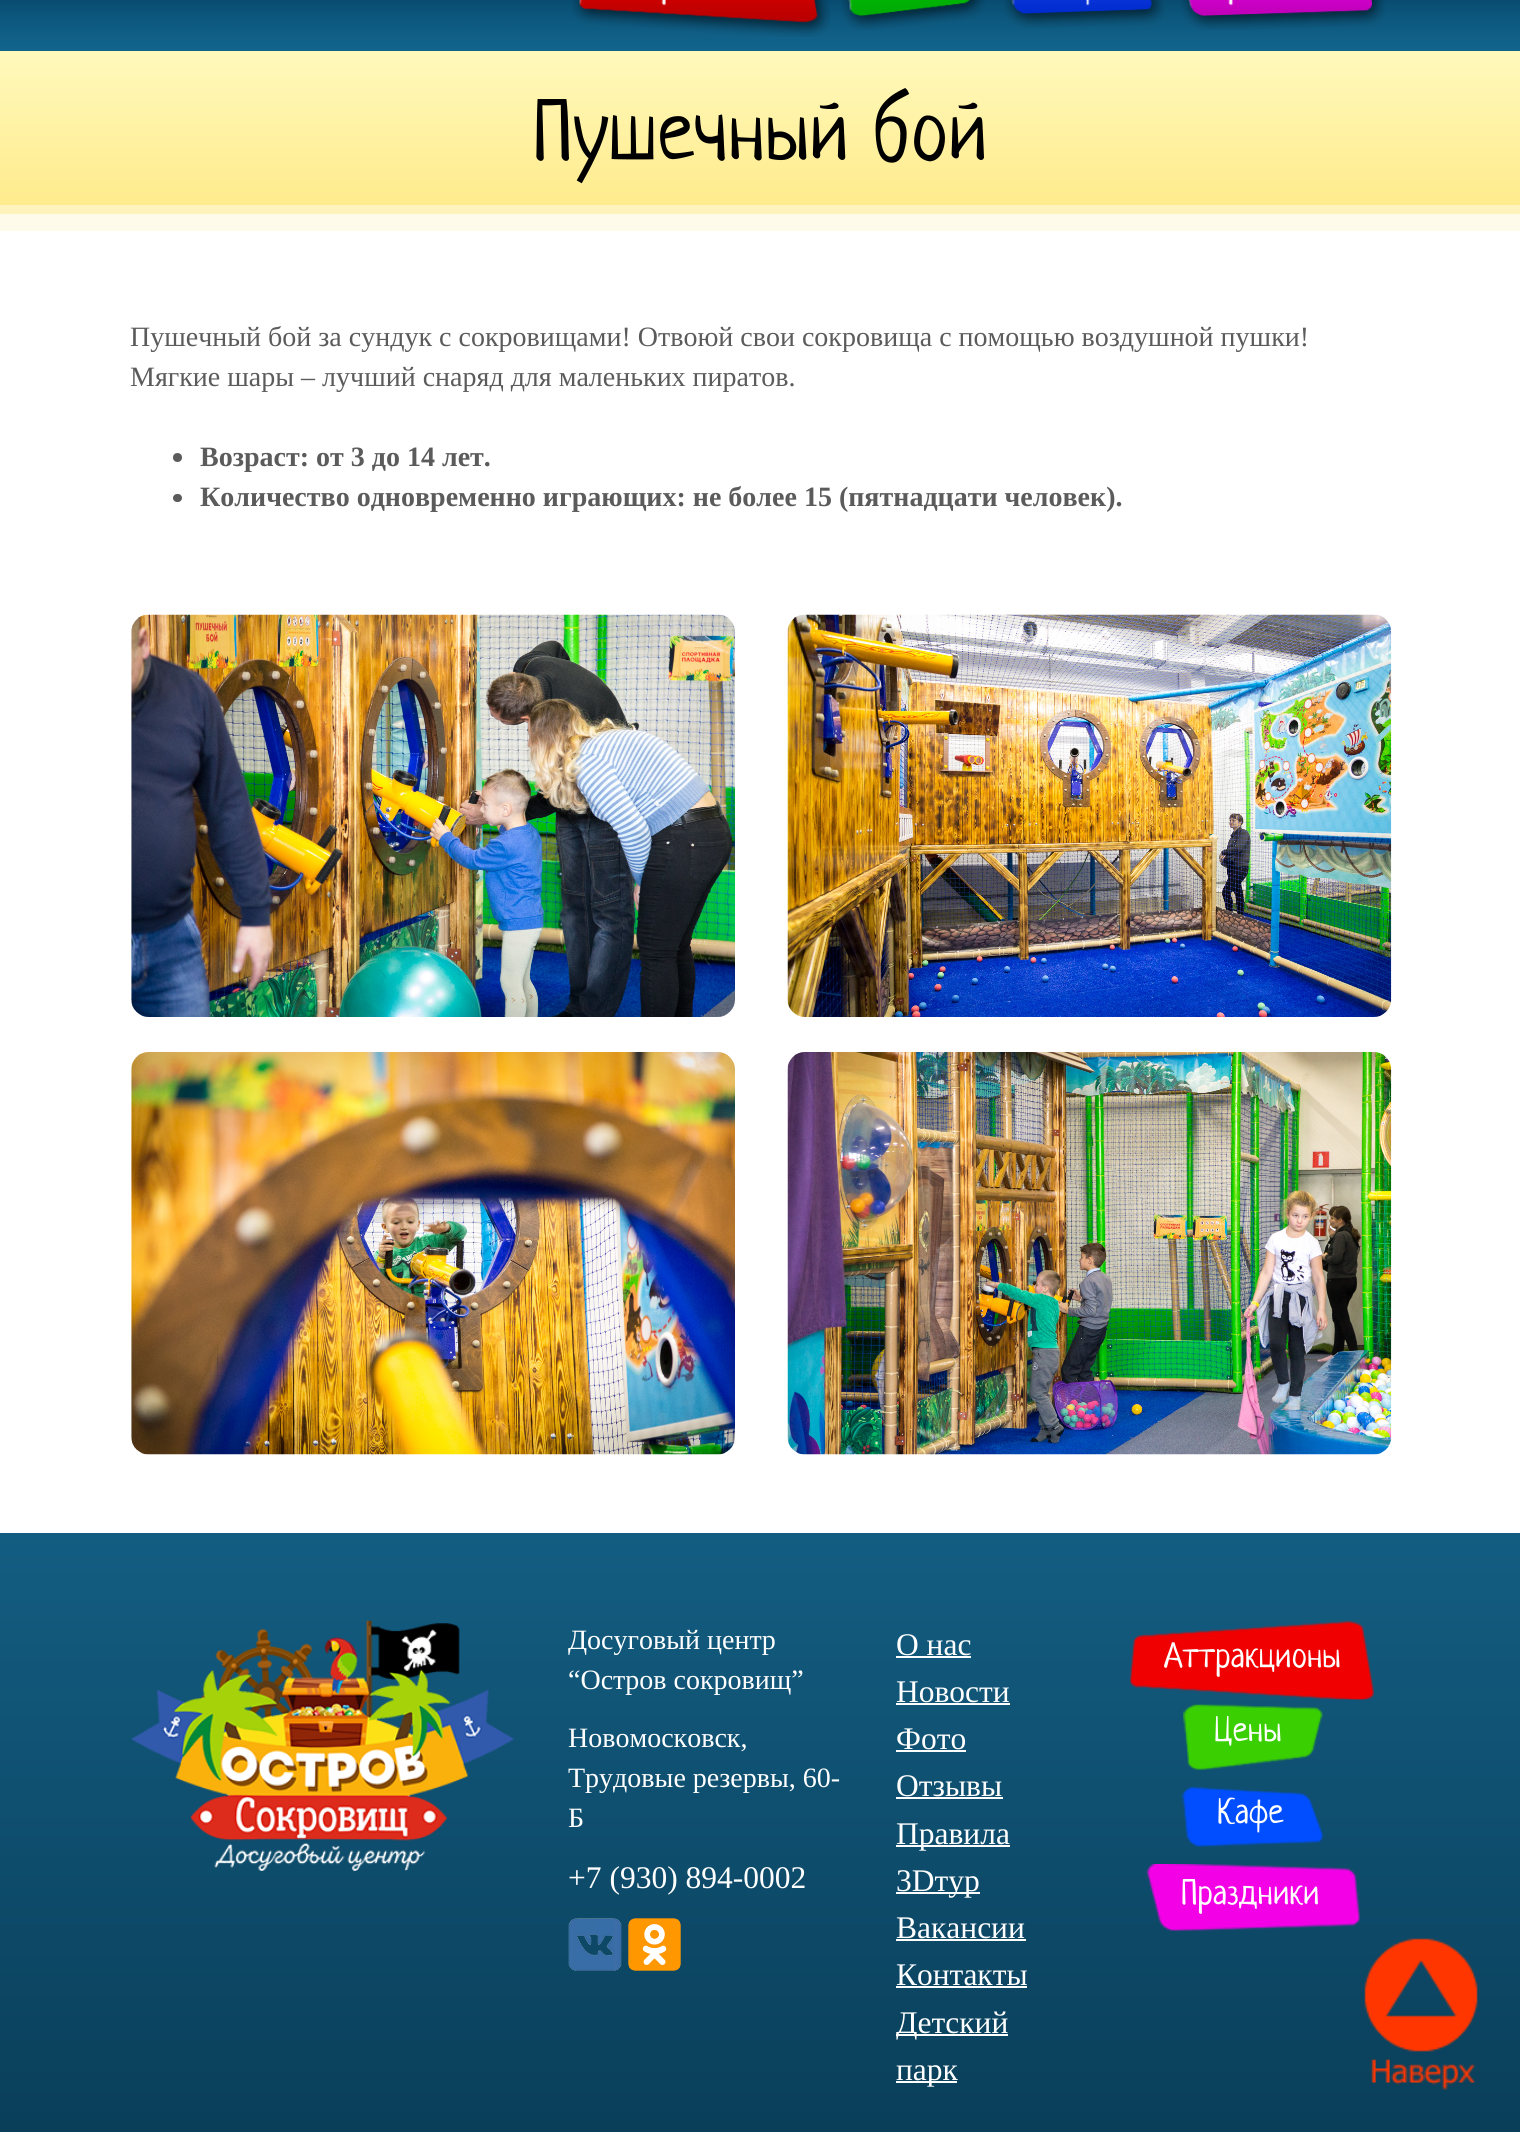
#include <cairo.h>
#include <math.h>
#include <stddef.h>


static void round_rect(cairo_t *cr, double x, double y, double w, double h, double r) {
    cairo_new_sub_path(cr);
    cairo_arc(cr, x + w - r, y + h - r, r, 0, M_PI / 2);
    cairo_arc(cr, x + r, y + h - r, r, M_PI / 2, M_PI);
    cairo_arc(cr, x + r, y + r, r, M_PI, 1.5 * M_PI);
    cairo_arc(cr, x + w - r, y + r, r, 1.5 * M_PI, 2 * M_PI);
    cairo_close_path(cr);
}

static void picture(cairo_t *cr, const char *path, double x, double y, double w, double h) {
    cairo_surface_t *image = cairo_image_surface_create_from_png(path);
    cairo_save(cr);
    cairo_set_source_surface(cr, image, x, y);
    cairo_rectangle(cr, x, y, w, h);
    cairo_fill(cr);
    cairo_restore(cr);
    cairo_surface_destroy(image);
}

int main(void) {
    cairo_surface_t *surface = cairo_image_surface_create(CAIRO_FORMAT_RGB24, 1520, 2132);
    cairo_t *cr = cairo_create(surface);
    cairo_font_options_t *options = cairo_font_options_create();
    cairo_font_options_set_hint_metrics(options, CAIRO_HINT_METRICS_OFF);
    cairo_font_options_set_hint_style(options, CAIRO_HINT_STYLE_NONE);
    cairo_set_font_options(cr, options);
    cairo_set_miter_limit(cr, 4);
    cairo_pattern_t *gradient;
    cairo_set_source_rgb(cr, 1, 1, 1);
    cairo_paint(cr);
    picture(cr, "img1.png", 0, 0, 1520, 51);
    picture(cr, "img2.png", 572, 0, 258, 37);
    picture(cr, "img3.png", 842, 0, 143, 30);
    picture(cr, "img4.png", 1004, 0, 160, 28);
    picture(cr, "img5.png", 1181, 0, 204, 30);
    gradient = cairo_pattern_create_linear(760, 231, 760, 51);
    cairo_pattern_add_color_stop_rgba(gradient, 0, 1, 0.914, 0.522, 1);
    cairo_pattern_add_color_stop_rgba(gradient, 1, 1, 0.976, 0.737, 1);
    cairo_set_source(cr, gradient);
    cairo_pattern_destroy(gradient);
    cairo_rectangle(cr, 0, 51, 1520, 154);
    cairo_fill(cr);
    gradient = cairo_pattern_create_linear(760, 231, 760, 51);
    cairo_pattern_add_color_stop_rgba(gradient, 0, 1, 0.949, 0.725, 1);
    cairo_pattern_add_color_stop_rgba(gradient, 1, 1, 0.988, 0.851, 1);
    cairo_set_source(cr, gradient);
    cairo_pattern_destroy(gradient);
    cairo_rectangle(cr, 0, 205, 1520, 9);
    cairo_fill(cr);
    gradient = cairo_pattern_create_linear(760, 231, 760, 51);
    cairo_pattern_add_color_stop_rgba(gradient, 0, 1, 0.984, 0.918, 1);
    cairo_pattern_add_color_stop_rgba(gradient, 1, 1, 0.996, 0.957, 1);
    cairo_set_source(cr, gradient);
    cairo_pattern_destroy(gradient);
    cairo_rectangle(cr, 0, 214, 1520, 17);
    cairo_fill(cr);
    cairo_select_font_face(cr, "Neucha", CAIRO_FONT_SLANT_NORMAL, CAIRO_FONT_WEIGHT_NORMAL);
    cairo_set_font_size(cr, 84);
    cairo_set_source_rgb(cr, 0, 0, 0);
    cairo_move_to(cr, 533, 159);
    cairo_show_text(cr, "Пушечный бой");
    cairo_select_font_face(cr, "Liberation Serif", CAIRO_FONT_SLANT_NORMAL, CAIRO_FONT_WEIGHT_NORMAL);
    cairo_set_font_size(cr, 28);
    cairo_set_source_rgb(cr, 0.357, 0.357, 0.357);
    cairo_move_to(cr, 130, 346);
    cairo_show_text(cr, "Пушечный бой за сундук с сокровищами! Отвоюй свои сокровища с помощью воздушной пушки!");
    cairo_move_to(cr, 130, 386);
    cairo_show_text(cr, "Мягкие шары – лучший снаряд для маленьких пиратов.");
    cairo_new_path(cr);
    cairo_arc(cr, 177.5, 457.5, 4.5, 0, 2 * M_PI);
    cairo_fill(cr);
    cairo_select_font_face(cr, "Liberation Serif", CAIRO_FONT_SLANT_NORMAL, CAIRO_FONT_WEIGHT_BOLD);
    cairo_move_to(cr, 200, 466);
    cairo_show_text(cr, "Возраст: от 3 до 14 лет.");
    round_rect(cr, 173, 494, 9, 8, 4);
    cairo_fill(cr);
    cairo_move_to(cr, 200, 506);
    cairo_show_text(cr, "Количество одновременно играющих: не более 15 (пятнадцати человек).");
    picture(cr, "img6.png", 131, 614, 604, 403);
    picture(cr, "img7.png", 787, 614, 605, 403);
    picture(cr, "img8.png", 131, 1052, 604, 403);
    picture(cr, "img9.png", 787, 1052, 605, 403);
    gradient = cairo_pattern_create_linear(760, 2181, 760, 1533);
    cairo_pattern_add_color_stop_rgba(gradient, 0, 0.035, 0.235, 0.337, 1);
    cairo_pattern_add_color_stop_rgba(gradient, 1, 0.075, 0.365, 0.51, 1);
    cairo_set_source(cr, gradient);
    cairo_pattern_destroy(gradient);
    cairo_rectangle(cr, 0, 1533, 1520, 599);
    cairo_fill(cr);
    picture(cr, "img10.png", 131, 1620, 383, 251);
    cairo_select_font_face(cr, "Liberation Serif", CAIRO_FONT_SLANT_NORMAL, CAIRO_FONT_WEIGHT_NORMAL);
    cairo_set_source_rgb(cr, 1, 1, 1);
    cairo_move_to(cr, 568, 1649);
    cairo_show_text(cr, "Досуговый центр");
    cairo_move_to(cr, 568, 1689);
    cairo_show_text(cr, "“Остров сокровищ”");
    cairo_move_to(cr, 568, 1747);
    cairo_show_text(cr, "Новомосковск,");
    cairo_move_to(cr, 568, 1787);
    cairo_show_text(cr, "Трудовые резервы, 60-");
    cairo_move_to(cr, 568, 1827);
    cairo_show_text(cr, "Б");
    cairo_set_font_size(cr, 31.5);
    cairo_move_to(cr, 568, 1888);
    cairo_show_text(cr, "+7 (930) 894-0002");
    picture(cr, "img11.png", 568, 1918, 54, 53);
    picture(cr, "img12.png", 628, 1918, 53, 53);
    cairo_move_to(cr, 896, 1655);
    cairo_show_text(cr, "О нас");
    cairo_rectangle(cr, 896, 1656, 75, 2);
    cairo_fill(cr);
    cairo_move_to(cr, 896, 1702);
    cairo_show_text(cr, "Новости");
    cairo_rectangle(cr, 896, 1703, 114, 2);
    cairo_fill(cr);
    cairo_move_to(cr, 896, 1749);
    cairo_show_text(cr, "Фото");
    cairo_rectangle(cr, 896, 1750, 70, 2);
    cairo_fill(cr);
    cairo_move_to(cr, 896, 1796);
    cairo_show_text(cr, "Отзывы");
    cairo_rectangle(cr, 896, 1797, 107, 2);
    cairo_fill(cr);
    cairo_rectangle(cr, 896, 1845, 114, 2);
    cairo_fill(cr);
    cairo_move_to(cr, 896, 1844);
    cairo_show_text(cr, "Правила");
    cairo_rectangle(cr, 896, 1892, 84, 2);
    cairo_fill(cr);
    cairo_move_to(cr, 896, 1891);
    cairo_show_text(cr, "3Dтур");
    cairo_move_to(cr, 896, 1938);
    cairo_show_text(cr, "Вакансии");
    cairo_rectangle(cr, 896, 1939, 130, 2);
    cairo_fill(cr);
    cairo_move_to(cr, 896, 1985);
    cairo_show_text(cr, "Контакты");
    cairo_rectangle(cr, 896, 1986, 131, 2);
    cairo_fill(cr);
    cairo_rectangle(cr, 896, 2034, 112, 2);
    cairo_fill(cr);
    cairo_move_to(cr, 896, 2033);
    cairo_show_text(cr, "Детский");
    cairo_rectangle(cr, 896, 2081, 61, 2);
    cairo_fill(cr);
    cairo_move_to(cr, 896, 2080);
    cairo_show_text(cr, "парк");
    picture(cr, "img13.png", 1130, 1620, 244, 80);
    cairo_select_font_face(cr, "Neucha", CAIRO_FONT_SLANT_NORMAL, CAIRO_FONT_WEIGHT_NORMAL);
    cairo_set_font_size(cr, 35);
    cairo_move_to(cr, 1164, 1667);
    cairo_show_text(cr, "Аттракционы");
    picture(cr, "img14.png", 1183, 1704, 140, 66);
    cairo_move_to(cr, 1214, 1741);
    cairo_show_text(cr, "Цены");
    picture(cr, "img15.png", 1181, 1787, 142, 60);
    cairo_move_to(cr, 1217, 1823);
    cairo_show_text(cr, "Кафе");
    picture(cr, "img16.png", 1146, 1864, 214, 67);
    cairo_move_to(cr, 1181, 1904);
    cairo_show_text(cr, "Праздники");
    picture(cr, "img17.png", 1364, 1938, 114, 152);
    cairo_surface_write_to_png(surface, "page.png");
    cairo_font_options_destroy(options);
    cairo_destroy(cr);
    cairo_surface_destroy(surface);
    return 0;
}
